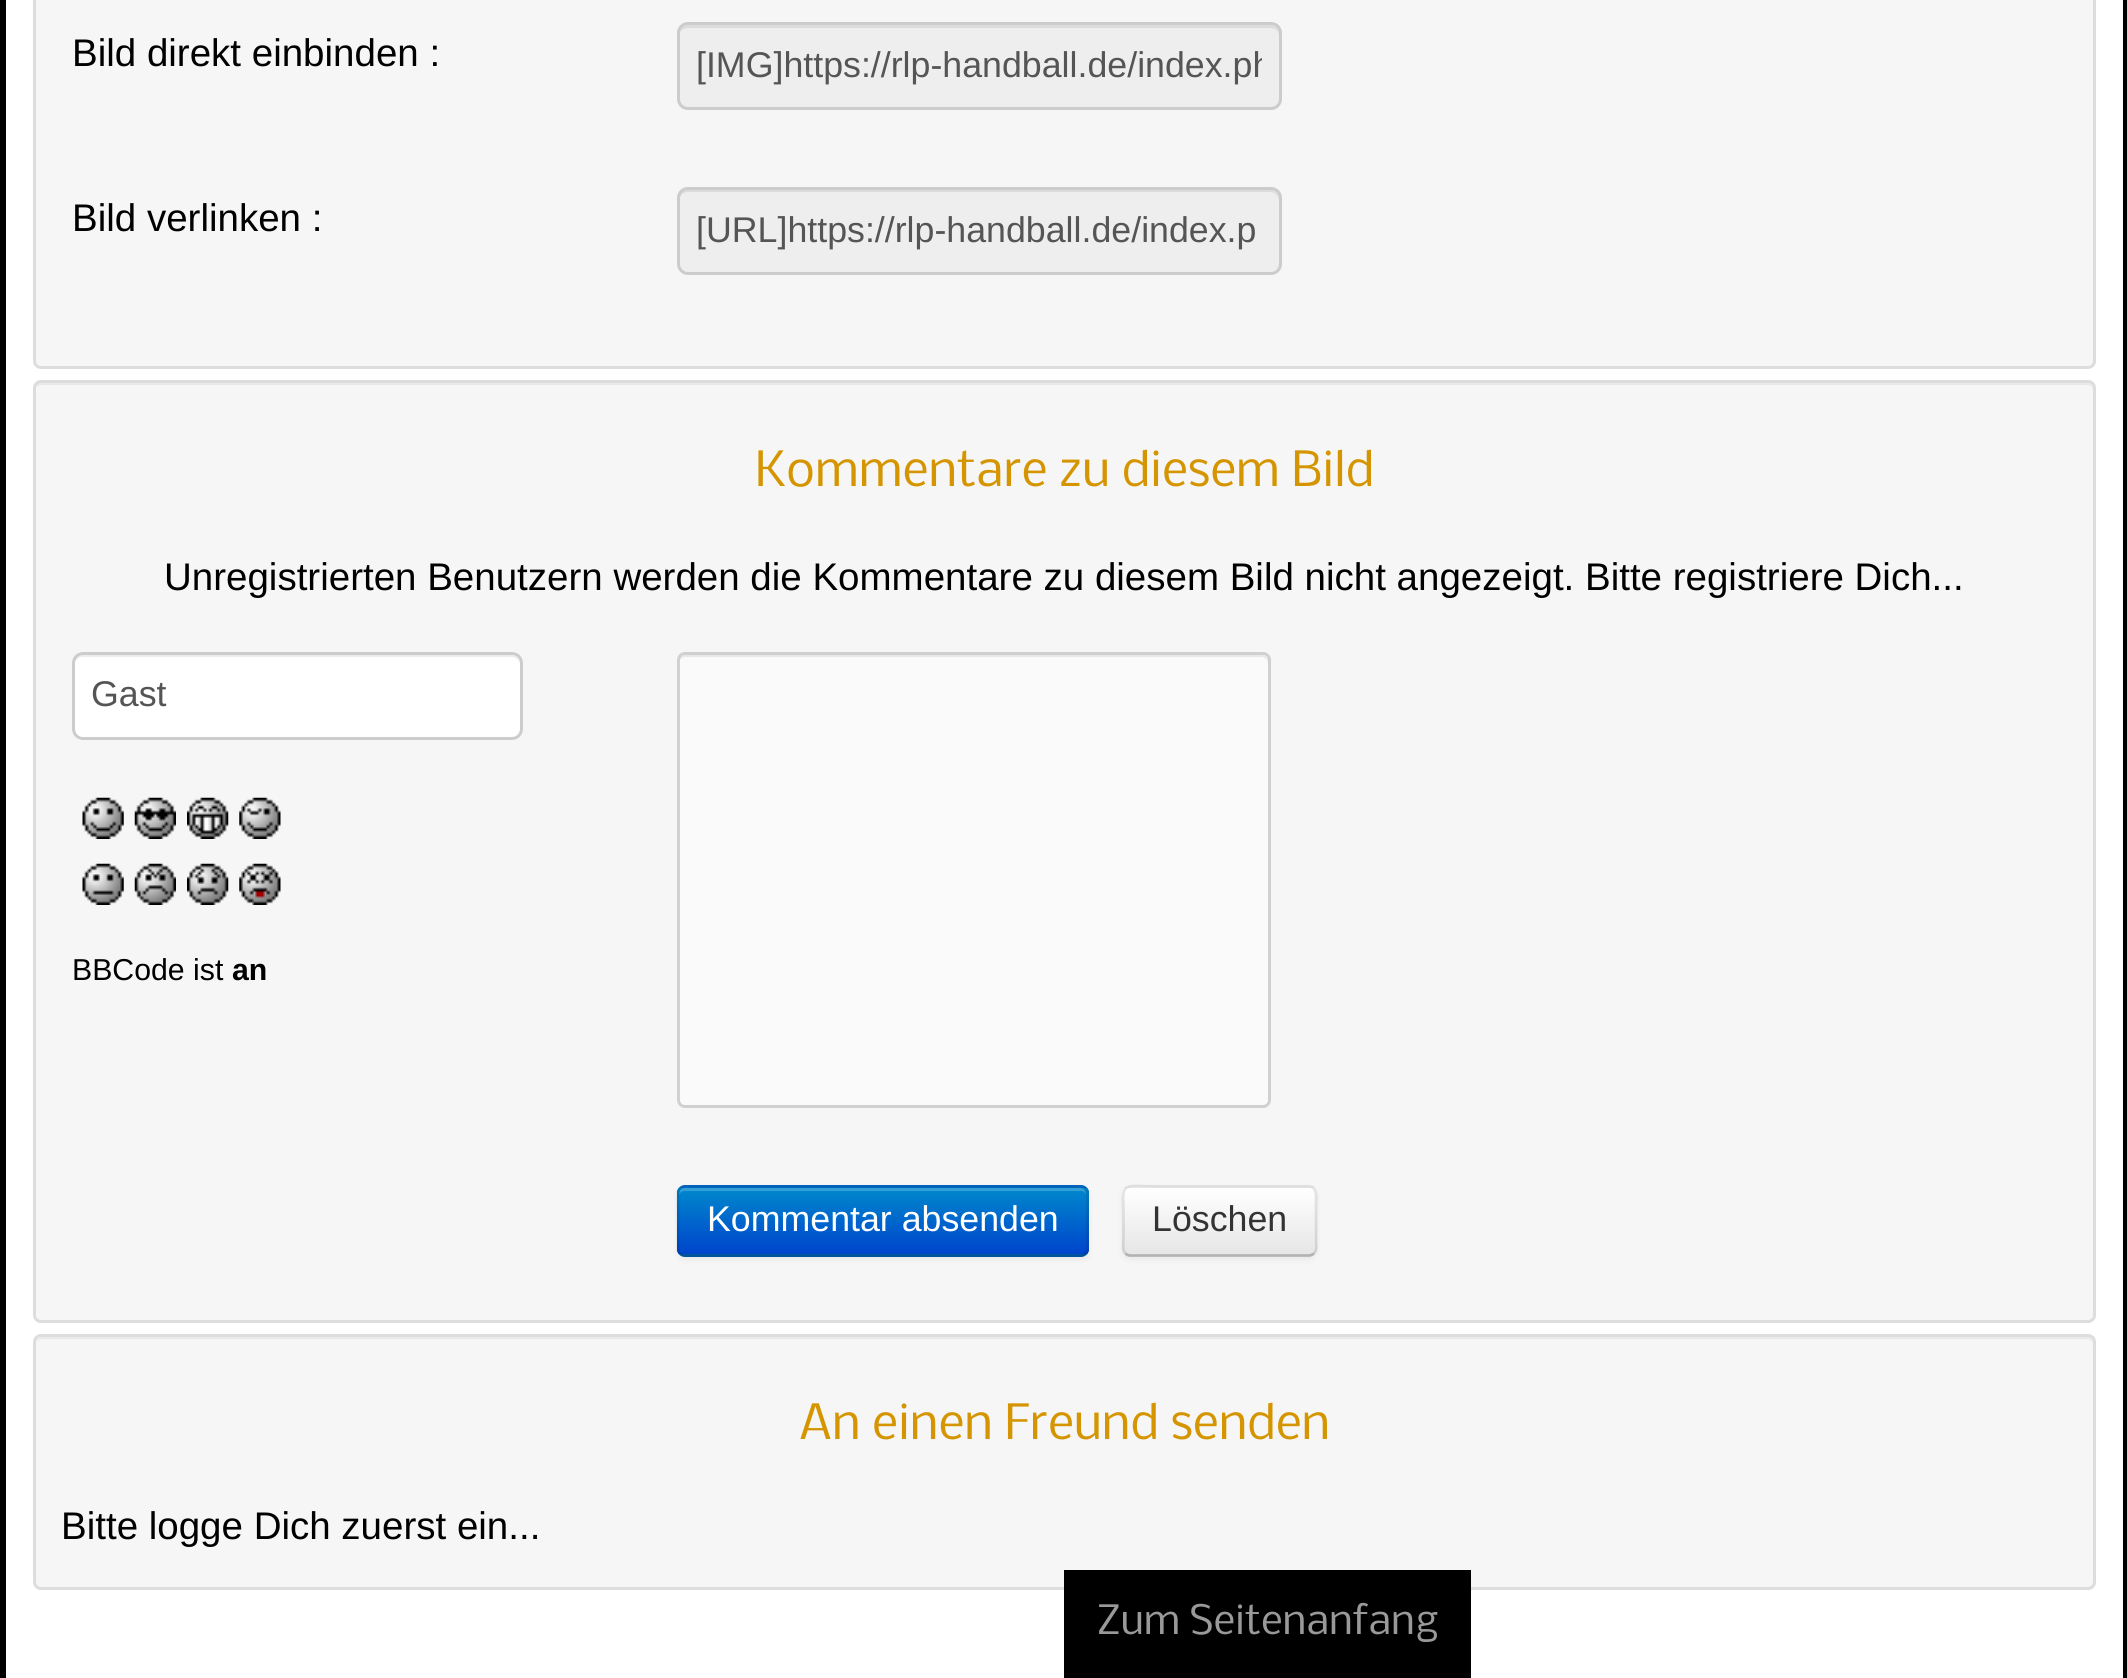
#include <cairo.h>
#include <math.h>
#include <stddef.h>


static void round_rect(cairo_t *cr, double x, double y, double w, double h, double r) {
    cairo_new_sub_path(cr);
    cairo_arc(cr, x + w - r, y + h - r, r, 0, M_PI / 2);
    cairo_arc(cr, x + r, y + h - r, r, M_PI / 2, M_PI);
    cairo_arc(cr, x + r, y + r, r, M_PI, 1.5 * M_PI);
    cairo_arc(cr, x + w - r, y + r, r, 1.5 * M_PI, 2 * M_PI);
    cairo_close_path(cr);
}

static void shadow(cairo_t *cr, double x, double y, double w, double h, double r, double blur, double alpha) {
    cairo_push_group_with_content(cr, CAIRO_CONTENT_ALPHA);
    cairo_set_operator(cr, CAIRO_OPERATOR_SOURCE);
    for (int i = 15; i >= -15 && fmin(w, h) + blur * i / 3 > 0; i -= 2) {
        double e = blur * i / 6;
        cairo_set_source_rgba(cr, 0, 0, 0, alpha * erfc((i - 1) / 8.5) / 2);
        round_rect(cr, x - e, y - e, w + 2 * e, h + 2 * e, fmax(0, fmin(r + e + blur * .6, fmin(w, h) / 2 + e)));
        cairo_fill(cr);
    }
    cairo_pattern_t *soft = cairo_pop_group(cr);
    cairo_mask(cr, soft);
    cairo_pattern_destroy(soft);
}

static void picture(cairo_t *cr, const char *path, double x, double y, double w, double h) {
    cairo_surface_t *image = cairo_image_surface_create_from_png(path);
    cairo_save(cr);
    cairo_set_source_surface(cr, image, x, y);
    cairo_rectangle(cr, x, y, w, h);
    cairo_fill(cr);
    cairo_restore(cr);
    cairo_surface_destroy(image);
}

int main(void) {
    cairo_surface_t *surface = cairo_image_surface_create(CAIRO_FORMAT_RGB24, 2127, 1678);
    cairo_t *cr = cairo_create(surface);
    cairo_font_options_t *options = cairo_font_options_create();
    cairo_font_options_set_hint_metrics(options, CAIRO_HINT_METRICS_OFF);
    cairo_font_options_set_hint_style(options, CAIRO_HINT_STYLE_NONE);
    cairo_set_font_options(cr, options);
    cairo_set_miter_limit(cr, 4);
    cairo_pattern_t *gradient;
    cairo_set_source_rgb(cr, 0, 0, 0);
    cairo_paint(cr);
    cairo_set_source_rgb(cr, 1, 1, 1);
    cairo_rectangle(cr, 6, 0, 2117, 1678);
    cairo_fill(cr);
    cairo_set_source_rgb(cr, 0.961, 0.961, 0.961);
    round_rect(cr, 34.5, -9.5, 2060, 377, 6.5);
    cairo_fill_preserve(cr);
    cairo_set_source_rgb(cr, 0.867, 0.867, 0.867);
    cairo_set_line_width(cr, 3);
    cairo_stroke(cr);
    cairo_select_font_face(cr, "Liberation Sans", CAIRO_FONT_SLANT_NORMAL, CAIRO_FONT_WEIGHT_NORMAL);
    cairo_set_font_size(cr, 38.5);
    cairo_set_source_rgb(cr, 0, 0, 0);
    cairo_move_to(cr, 72, 66);
    cairo_show_text(cr, "Bild direkt einbinden :");
    cairo_set_source_rgb(cr, 0.933, 0.933, 0.933);
    round_rect(cr, 677, 22, 605, 88, 11);
    cairo_fill(cr);
    cairo_set_source_rgb(cr, 0.863, 0.863, 0.863);
    cairo_new_path(cr);
    cairo_move_to(cr, 688, 28);
    cairo_line_to(cr, 1270, 28);
    cairo_curve_to(cr, 1275, 28, 1279, 31, 1279, 36);
    cairo_line_to(cr, 1279, 33);
    cairo_curve_to(cr, 1279, 29, 1275, 25, 1271, 25);
    cairo_line_to(cr, 687, 25);
    cairo_curve_to(cr, 683, 25, 679, 29, 679, 33);
    cairo_line_to(cr, 679, 36);
    cairo_curve_to(cr, 679, 31, 683, 28, 688, 28);
    cairo_close_path(cr);
    cairo_fill(cr);
    round_rect(cr, 678.5, 23.5, 602, 85, 9.5);
    cairo_set_source_rgb(cr, 0.8, 0.8, 0.8);
    cairo_stroke(cr);
    cairo_save(cr);
    cairo_rectangle(cr, 696, 39, 566, 55);
    cairo_clip(cr);
    cairo_set_font_size(cr, 35.75);
    cairo_set_source_rgb(cr, 0.333, 0.333, 0.333);
    cairo_move_to(cr, 696, 77);
    cairo_show_text(cr, "[IMG]https://rlp-handball.de/index.ph");
    cairo_restore(cr);
    cairo_set_source_rgb(cr, 0, 0, 0);
    cairo_move_to(cr, 72, 231);
    cairo_show_text(cr, "Bild verlinken :");
    cairo_set_source_rgb(cr, 0.933, 0.933, 0.933);
    round_rect(cr, 677, 187, 605, 88, 11);
    cairo_fill(cr);
    cairo_set_source_rgb(cr, 0.863, 0.863, 0.863);
    cairo_new_path(cr);
    cairo_move_to(cr, 688, 192);
    cairo_line_to(cr, 1270, 192);
    cairo_curve_to(cr, 1275, 192, 1279, 196, 1279, 201);
    cairo_line_to(cr, 1279, 198);
    cairo_curve_to(cr, 1279, 194, 1275, 190, 1271, 190);
    cairo_line_to(cr, 687, 190);
    cairo_curve_to(cr, 683, 190, 679, 194, 679, 198);
    cairo_line_to(cr, 679, 201);
    cairo_curve_to(cr, 679, 196, 683, 192, 688, 192);
    cairo_close_path(cr);
    cairo_fill(cr);
    round_rect(cr, 678.5, 188.5, 602, 85, 9.5);
    cairo_set_source_rgb(cr, 0.8, 0.8, 0.8);
    cairo_stroke(cr);
    cairo_set_font_size(cr, 35.75);
    cairo_set_source_rgb(cr, 0.333, 0.333, 0.333);
    cairo_move_to(cr, 696, 242);
    cairo_show_text(cr, "[URL]https://rlp-handball.de/index.p");
    cairo_set_source_rgb(cr, 0.961, 0.961, 0.961);
    round_rect(cr, 33, 380, 2063, 943, 8);
    cairo_fill(cr);
    cairo_set_source_rgb(cr, 0.914, 0.914, 0.914);
    cairo_new_path(cr);
    cairo_move_to(cr, 41, 385);
    cairo_line_to(cr, 2087, 385);
    cairo_curve_to(cr, 2090, 385, 2093, 387, 2093, 390);
    cairo_curve_to(cr, 2093, 386, 2092, 382, 2087, 382);
    cairo_line_to(cr, 42, 382);
    cairo_curve_to(cr, 37, 382, 36, 386, 36, 390);
    cairo_curve_to(cr, 36, 387, 38, 385, 41, 385);
    cairo_close_path(cr);
    cairo_fill(cr);
    round_rect(cr, 34.5, 381.5, 2060, 940, 6.5);
    cairo_set_source_rgb(cr, 0.867, 0.867, 0.867);
    cairo_stroke(cr);
    cairo_select_font_face(cr, "Nobile", CAIRO_FONT_SLANT_NORMAL, CAIRO_FONT_WEIGHT_NORMAL);
    cairo_set_font_size(cr, 46.25);
    cairo_set_source_rgb(cr, 0.835, 0.584, 0);
    cairo_move_to(cr, 755, 486);
    cairo_show_text(cr, "Kommentare zu diesem Bild");
    cairo_select_font_face(cr, "Liberation Sans", CAIRO_FONT_SLANT_NORMAL, CAIRO_FONT_WEIGHT_NORMAL);
    cairo_set_font_size(cr, 38.5);
    cairo_set_source_rgb(cr, 0, 0, 0);
    cairo_move_to(cr, 164, 590);
    cairo_show_text(cr, "Unregistrierten Benutzern werden die Kommentare zu diesem Bild nicht angezeigt. Bitte registriere Dich...");
    cairo_set_source_rgb(cr, 1, 1, 1);
    round_rect(cr, 72, 652, 451, 88, 11);
    cairo_fill(cr);
    cairo_set_source_rgb(cr, 0.925, 0.925, 0.925);
    cairo_new_path(cr);
    cairo_move_to(cr, 82, 657);
    cairo_line_to(cr, 512, 657);
    cairo_curve_to(cr, 516, 657, 520, 661, 520, 666);
    cairo_curve_to(cr, 520, 661, 518, 655, 512, 655);
    cairo_line_to(cr, 80, 655);
    cairo_curve_to(cr, 75, 656, 74, 661, 74, 666);
    cairo_curve_to(cr, 74, 661, 78, 657, 82, 657);
    cairo_close_path(cr);
    cairo_fill(cr);
    round_rect(cr, 73.5, 653.5, 448, 85, 9.5);
    cairo_set_source_rgb(cr, 0.8, 0.8, 0.8);
    cairo_stroke(cr);
    cairo_set_font_size(cr, 35.75);
    cairo_set_source_rgb(cr, 0.333, 0.333, 0.333);
    cairo_move_to(cr, 91, 706);
    cairo_show_text(cr, "Gast");
    picture(cr, "img1.png", 82, 797, 42, 42);
    picture(cr, "img2.png", 134, 797, 42, 42);
    picture(cr, "img3.png", 187, 797, 42, 42);
    picture(cr, "img4.png", 239, 797, 42, 42);
    picture(cr, "img5.png", 82, 863, 42, 42);
    picture(cr, "img6.png", 134, 863, 42, 42);
    picture(cr, "img7.png", 187, 863, 42, 42);
    picture(cr, "img8.png", 239, 863, 42, 42);
    cairo_set_font_size(cr, 30.25);
    cairo_set_source_rgb(cr, 0, 0, 0);
    cairo_move_to(cr, 72, 980);
    cairo_show_text(cr, "BBCode ist");
    cairo_select_font_face(cr, "Liberation Sans", CAIRO_FONT_SLANT_NORMAL, CAIRO_FONT_WEIGHT_BOLD);
    cairo_move_to(cr, 232, 980);
    cairo_show_text(cr, "an");
    cairo_set_source_rgb(cr, 0.98, 0.98, 0.98);
    round_rect(cr, 677, 652, 594, 456, 8);
    cairo_fill(cr);
    cairo_set_source_rgb(cr, 0.906, 0.906, 0.906);
    cairo_new_path(cr);
    cairo_move_to(cr, 685, 657);
    cairo_line_to(cr, 1262, 657);
    cairo_curve_to(cr, 1265, 657, 1268, 660, 1268, 663);
    cairo_line_to(cr, 1268, 661);
    cairo_curve_to(cr, 1268, 658, 1265, 655, 1262, 655);
    cairo_line_to(cr, 685, 655);
    cairo_curve_to(cr, 682, 655, 679, 658, 679, 661);
    cairo_line_to(cr, 679, 663);
    cairo_curve_to(cr, 679, 660, 682, 657, 685, 657);
    cairo_close_path(cr);
    cairo_fill(cr);
    round_rect(cr, 678.5, 653.5, 591, 453, 6.5);
    cairo_set_source_rgb(cr, 0.816, 0.816, 0.816);
    cairo_stroke(cr);
    cairo_set_source_rgb(cr, 0, 0, 0);
    shadow(cr, 677, 1188, 412, 72, 8, 3, 0.05);
    cairo_set_source_rgb(cr, 0, 0.427, 0.8);
    round_rect(cr, 677, 1185, 412, 72, 8);
    cairo_fill(cr);
    cairo_save(cr);
    round_rect(cr, 677, 1185, 412, 72, 8);
    cairo_clip(cr);
    gradient = cairo_pattern_create_linear(883, 1188, 883, 1254);
    cairo_pattern_add_color_stop_rgba(gradient, 0, 0, 0.533, 0.8, 1);
    cairo_pattern_add_color_stop_rgba(gradient, 1, 0, 0.267, 0.8, 1);
    cairo_set_source(cr, gradient);
    cairo_pattern_destroy(gradient);
    cairo_rectangle(cr, 677, 1188, 412, 66);
    cairo_fill(cr);
    cairo_restore(cr);
    cairo_set_source_rgba(cr, 1, 1, 1, 0.2);
    cairo_new_path(cr);
    cairo_move_to(cr, 685, 1191);
    cairo_line_to(cr, 1081, 1191);
    cairo_curve_to(cr, 1084, 1191, 1086, 1193, 1086, 1196);
    cairo_curve_to(cr, 1086, 1192, 1085, 1188, 1080, 1188);
    cairo_line_to(cr, 685, 1188);
    cairo_curve_to(cr, 680, 1188, 679, 1192, 679, 1196);
    cairo_curve_to(cr, 679, 1193, 682, 1191, 685, 1191);
    cairo_close_path(cr);
    cairo_fill(cr);
    cairo_new_path(cr);
    cairo_move_to(cr, 1085.5, 1253.5);
    cairo_curve_to(cr, 1084.5, 1254.5, 1082.5, 1255.5, 1081, 1255.5);
    cairo_line_to(cr, 685, 1255.5);
    cairo_curve_to(cr, 683, 1255.5, 681, 1254.5, 680, 1253.5);
    cairo_set_source_rgba(cr, 0, 0, 0, 0.25);
    cairo_set_line_width(cr, 2.8);
    cairo_stroke(cr);
    cairo_new_path(cr);
    cairo_move_to(cr, 680, 1253.5);
    cairo_curve_to(cr, 678.5, 1252, 678, 1250.5, 678, 1248.5);
    cairo_line_to(cr, 678, 1193.5);
    cairo_curve_to(cr, 678, 1191.5, 678.5, 1190, 680, 1188.5);
    cairo_curve_to(cr, 681, 1187.5, 683, 1186.5, 685, 1186.5);
    cairo_line_to(cr, 1081, 1186.5);
    cairo_curve_to(cr, 1082.5, 1186.5, 1084.5, 1187.5, 1085.5, 1188.5);
    cairo_curve_to(cr, 1087, 1190, 1087.5, 1191.5, 1087.5, 1193.5);
    cairo_line_to(cr, 1087.5, 1248.5);
    cairo_curve_to(cr, 1087.5, 1250.5, 1087, 1252, 1085.5, 1253.5);
    cairo_set_source_rgba(cr, 0, 0, 0, 0.1);
    cairo_stroke(cr);
    cairo_select_font_face(cr, "Liberation Sans", CAIRO_FONT_SLANT_NORMAL, CAIRO_FONT_WEIGHT_NORMAL);
    cairo_set_font_size(cr, 35.75);
    cairo_set_source_rgb(cr, 1, 1, 1);
    cairo_move_to(cr, 707, 1231);
    cairo_show_text(cr, "Kommentar absenden");
    cairo_set_source_rgb(cr, 0, 0, 0);
    shadow(cr, 1122, 1188, 195, 72, 8, 3, 0.05);
    cairo_set_source_rgb(cr, 0.961, 0.961, 0.961);
    round_rect(cr, 1122, 1185, 195, 72, 8);
    cairo_fill(cr);
    cairo_save(cr);
    round_rect(cr, 1122, 1185, 195, 72, 8);
    cairo_clip(cr);
    gradient = cairo_pattern_create_linear(1220, 1188, 1220, 1254);
    cairo_pattern_add_color_stop_rgba(gradient, 0, 1, 1, 1, 1);
    cairo_pattern_add_color_stop_rgba(gradient, 1, 0.902, 0.902, 0.902, 1);
    cairo_set_source(cr, gradient);
    cairo_pattern_destroy(gradient);
    cairo_rectangle(cr, 1122, 1188, 195, 66);
    cairo_fill(cr);
    cairo_restore(cr);
    cairo_set_source_rgba(cr, 1, 1, 1, 0.2);
    cairo_new_path(cr);
    cairo_move_to(cr, 1130, 1191);
    cairo_line_to(cr, 1309, 1191);
    cairo_curve_to(cr, 1316, 1191, 1314, 1201, 1314, 1205);
    cairo_line_to(cr, 1314, 1251);
    cairo_curve_to(cr, 1315, 1250, 1315, 1249, 1315, 1248);
    cairo_line_to(cr, 1315, 1194);
    cairo_curve_to(cr, 1315, 1191, 1312, 1188, 1309, 1188);
    cairo_line_to(cr, 1131, 1188);
    cairo_curve_to(cr, 1128, 1188, 1125, 1191, 1125, 1194);
    cairo_line_to(cr, 1125, 1196);
    cairo_curve_to(cr, 1125, 1193, 1127, 1191, 1130, 1191);
    cairo_close_path(cr);
    cairo_fill(cr);
    cairo_new_path(cr);
    cairo_move_to(cr, 1314, 1253.5);
    cairo_curve_to(cr, 1312.5, 1254.5, 1311, 1255.5, 1309, 1255.5);
    cairo_line_to(cr, 1130, 1255.5);
    cairo_curve_to(cr, 1128.5, 1255.5, 1126.5, 1254.5, 1125.5, 1253.5);
    cairo_set_source_rgb(cr, 0.702, 0.702, 0.702);
    cairo_stroke(cr);
    cairo_new_path(cr);
    cairo_move_to(cr, 1125.5, 1253.5);
    cairo_curve_to(cr, 1122, 1250, 1123.5, 1243, 1123.5, 1239.5);
    cairo_line_to(cr, 1123.5, 1221);
    cairo_curve_to(cr, 1123.5, 1180, 1117, 1186.5, 1160, 1186.5);
    cairo_line_to(cr, 1309, 1186.5);
    cairo_curve_to(cr, 1317.5, 1186.5, 1316, 1197.5, 1316, 1202.5);
    cairo_line_to(cr, 1316, 1239.5);
    cairo_curve_to(cr, 1316, 1243, 1317.5, 1250, 1314, 1253.5);
    cairo_set_source_rgba(cr, 0, 0, 0, 0.1);
    cairo_stroke(cr);
    cairo_set_source_rgb(cr, 0.2, 0.2, 0.2);
    cairo_move_to(cr, 1152, 1231);
    cairo_show_text(cr, "Löschen");
    cairo_set_source_rgb(cr, 0.961, 0.961, 0.961);
    round_rect(cr, 33, 1334, 2063, 256, 8);
    cairo_fill(cr);
    cairo_set_source_rgb(cr, 0.914, 0.914, 0.914);
    cairo_new_path(cr);
    cairo_move_to(cr, 41, 1339);
    cairo_line_to(cr, 2087, 1339);
    cairo_curve_to(cr, 2090, 1339, 2093, 1342, 2093, 1345);
    cairo_curve_to(cr, 2093, 1341, 2092, 1337, 2087, 1337);
    cairo_line_to(cr, 42, 1337);
    cairo_curve_to(cr, 37, 1337, 36, 1341, 36, 1345);
    cairo_curve_to(cr, 36, 1342, 38, 1339, 41, 1339);
    cairo_close_path(cr);
    cairo_fill(cr);
    round_rect(cr, 34.5, 1335.5, 2060, 253, 6.5);
    cairo_set_source_rgb(cr, 0.867, 0.867, 0.867);
    cairo_set_line_width(cr, 3);
    cairo_stroke(cr);
    cairo_select_font_face(cr, "Nobile", CAIRO_FONT_SLANT_NORMAL, CAIRO_FONT_WEIGHT_NORMAL);
    cairo_set_font_size(cr, 46.25);
    cairo_set_source_rgb(cr, 0.835, 0.584, 0);
    cairo_move_to(cr, 799, 1439);
    cairo_show_text(cr, "An einen Freund senden");
    cairo_select_font_face(cr, "Liberation Sans", CAIRO_FONT_SLANT_NORMAL, CAIRO_FONT_WEIGHT_NORMAL);
    cairo_set_font_size(cr, 38.5);
    cairo_set_source_rgb(cr, 0, 0, 0);
    cairo_move_to(cr, 61, 1539);
    cairo_show_text(cr, "Bitte logge Dich zuerst ein...");
    cairo_rectangle(cr, 1064, 1570, 407, 108);
    cairo_fill(cr);
    cairo_select_font_face(cr, "Nobile", CAIRO_FONT_SLANT_NORMAL, CAIRO_FONT_WEIGHT_NORMAL);
    cairo_set_source_rgb(cr, 0.6, 0.6, 0.6);
    cairo_move_to(cr, 1097, 1634);
    cairo_show_text(cr, "Zum Seitenanfang");
    cairo_surface_write_to_png(surface, "page.png");
    cairo_font_options_destroy(options);
    cairo_destroy(cr);
    cairo_surface_destroy(surface);
    return 0;
}
